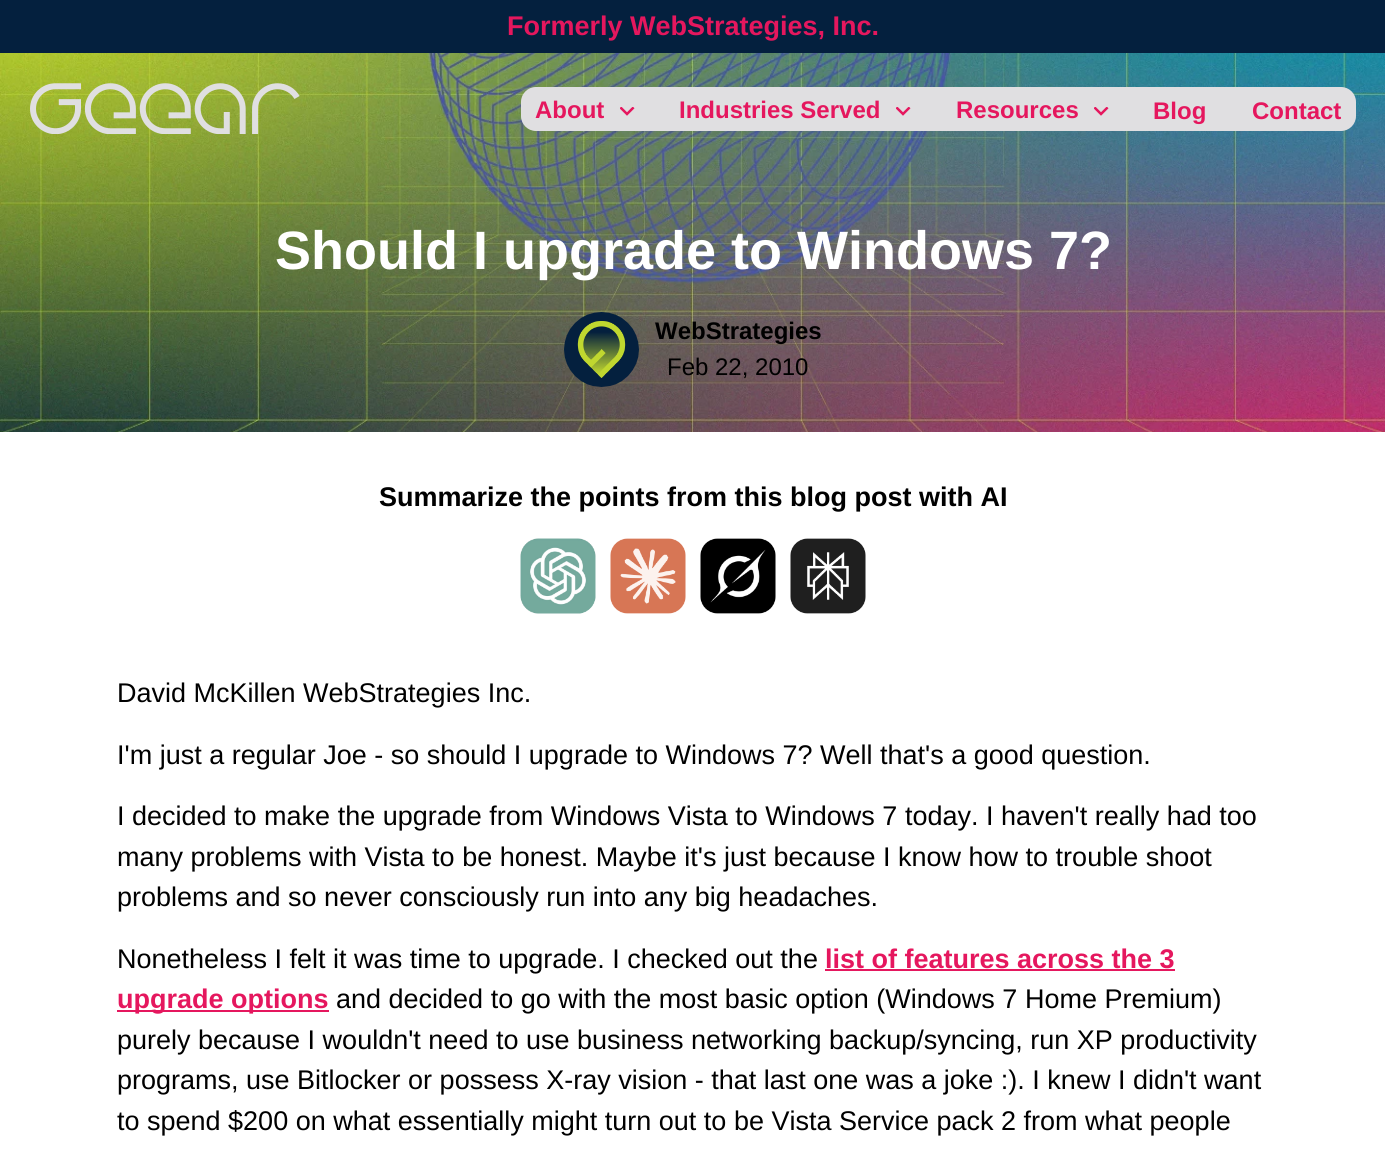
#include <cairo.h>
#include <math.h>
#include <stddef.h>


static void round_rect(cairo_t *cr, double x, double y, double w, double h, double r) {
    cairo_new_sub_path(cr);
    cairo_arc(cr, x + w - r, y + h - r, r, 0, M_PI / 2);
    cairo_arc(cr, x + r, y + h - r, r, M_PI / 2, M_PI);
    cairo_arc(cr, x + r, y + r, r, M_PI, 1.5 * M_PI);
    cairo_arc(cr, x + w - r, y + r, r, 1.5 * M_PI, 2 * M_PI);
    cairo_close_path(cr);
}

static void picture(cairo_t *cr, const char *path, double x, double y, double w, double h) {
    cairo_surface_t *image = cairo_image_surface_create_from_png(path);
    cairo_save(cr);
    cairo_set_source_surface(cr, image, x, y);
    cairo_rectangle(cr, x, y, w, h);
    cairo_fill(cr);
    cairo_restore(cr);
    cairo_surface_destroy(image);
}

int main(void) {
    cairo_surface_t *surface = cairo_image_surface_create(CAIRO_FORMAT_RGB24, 1385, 1155);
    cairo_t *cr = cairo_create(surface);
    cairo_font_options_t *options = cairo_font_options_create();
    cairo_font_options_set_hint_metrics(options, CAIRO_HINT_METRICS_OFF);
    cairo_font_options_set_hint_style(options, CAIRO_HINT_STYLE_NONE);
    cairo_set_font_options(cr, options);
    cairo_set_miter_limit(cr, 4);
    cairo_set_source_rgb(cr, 1, 1, 1);
    cairo_paint(cr);
    cairo_set_source_rgb(cr, 0.016, 0.125, 0.243);
    cairo_rectangle(cr, 0, 0, 1385, 53);
    cairo_fill(cr);
    cairo_select_font_face(cr, "Liberation Sans", CAIRO_FONT_SLANT_NORMAL, CAIRO_FONT_WEIGHT_BOLD);
    cairo_set_font_size(cr, 27);
    cairo_set_source_rgb(cr, 0.898, 0.09, 0.369);
    cairo_move_to(cr, 507, 35);
    cairo_show_text(cr, "Formerly WebStrategies, Inc.");
    picture(cr, "img3.png", 0, 53, 1385, 379);
    picture(cr, "img1.png", 30, 83, 270, 51);
    cairo_set_source_rgb(cr, 0.878, 0.875, 0.882);
    round_rect(cr, 521, 87, 835, 44, 15);
    cairo_fill(cr);
    cairo_set_font_size(cr, 24);
    cairo_set_source_rgb(cr, 0.898, 0.09, 0.369);
    cairo_move_to(cr, 535, 118);
    cairo_show_text(cr, "About");
    picture(cr, "img2.png", 620, 107, 15, 9);
    cairo_move_to(cr, 679, 118);
    cairo_show_text(cr, "Industries Served");
    picture(cr, "img2.png", 896, 107, 15, 9);
    cairo_move_to(cr, 956, 118);
    cairo_show_text(cr, "Resources");
    picture(cr, "img2.png", 1094, 107, 15, 9);
    cairo_move_to(cr, 1153, 119);
    cairo_show_text(cr, "Blog");
    cairo_move_to(cr, 1252, 119);
    cairo_show_text(cr, "Contact");
    cairo_set_font_size(cr, 54);
    cairo_set_source_rgb(cr, 1, 1, 1);
    cairo_move_to(cr, 275, 269);
    cairo_show_text(cr, "Should I upgrade to Windows 7?");
    picture(cr, "img4.png", 564, 312, 75, 75);
    cairo_set_font_size(cr, 24);
    cairo_set_source_rgb(cr, 0, 0, 0);
    cairo_move_to(cr, 655, 339);
    cairo_show_text(cr, "WebStrategies");
    cairo_select_font_face(cr, "Liberation Sans", CAIRO_FONT_SLANT_NORMAL, CAIRO_FONT_WEIGHT_NORMAL);
    cairo_move_to(cr, 667, 375);
    cairo_show_text(cr, "Feb 22, 2010");
    cairo_select_font_face(cr, "Liberation Sans", CAIRO_FONT_SLANT_NORMAL, CAIRO_FONT_WEIGHT_BOLD);
    cairo_set_font_size(cr, 27);
    cairo_move_to(cr, 379, 506);
    cairo_show_text(cr, "Summarize the points from this blog post with AI");
    picture(cr, "img5.png", 520, 538, 76, 76);
    picture(cr, "img6.png", 610, 538, 76, 76);
    picture(cr, "img7.png", 700, 538, 76, 76);
    picture(cr, "img8.png", 790, 538, 76, 76);
    cairo_select_font_face(cr, "Liberation Sans", CAIRO_FONT_SLANT_NORMAL, CAIRO_FONT_WEIGHT_NORMAL);
    cairo_move_to(cr, 117, 702);
    cairo_show_text(cr, "David McKillen WebStrategies Inc.");
    cairo_move_to(cr, 117, 764);
    cairo_show_text(cr, "I'm just a regular Joe - so should I upgrade to Windows 7? Well that's a good question.");
    cairo_move_to(cr, 117, 825);
    cairo_show_text(cr, "I decided to make the upgrade from Windows Vista to Windows 7 today. I haven't really had too");
    cairo_move_to(cr, 117, 866);
    cairo_show_text(cr, "many problems with Vista to be honest. Maybe it's just because I know how to trouble shoot");
    cairo_move_to(cr, 117, 906);
    cairo_show_text(cr, "problems and so never consciously run into any big headaches.");
    cairo_move_to(cr, 117, 968);
    cairo_show_text(cr, "Nonetheless I felt it was time to upgrade. I checked out the");
    cairo_select_font_face(cr, "Liberation Sans", CAIRO_FONT_SLANT_NORMAL, CAIRO_FONT_WEIGHT_BOLD);
    cairo_set_source_rgb(cr, 0.898, 0.09, 0.369);
    cairo_move_to(cr, 825, 968);
    cairo_show_text(cr, "list of features across the 3");
    cairo_rectangle(cr, 825, 969, 350, 2);
    cairo_fill(cr);
    cairo_rectangle(cr, 117, 1010, 212, 2);
    cairo_fill(cr);
    cairo_move_to(cr, 117, 1008);
    cairo_show_text(cr, "upgrade options");
    cairo_select_font_face(cr, "Liberation Sans", CAIRO_FONT_SLANT_NORMAL, CAIRO_FONT_WEIGHT_NORMAL);
    cairo_set_source_rgb(cr, 0, 0, 0);
    cairo_move_to(cr, 336, 1008);
    cairo_show_text(cr, "and decided to go with the most basic option (Windows 7 Home Premium)");
    cairo_move_to(cr, 117, 1049);
    cairo_show_text(cr, "purely because I wouldn't need to use business networking backup/syncing, run XP productivity");
    cairo_move_to(cr, 117, 1089);
    cairo_show_text(cr, "programs, use Bitlocker or possess X-ray vision - that last one was a joke :). I knew I didn't want");
    cairo_move_to(cr, 117, 1130);
    cairo_show_text(cr, "to spend $200 on what essentially might turn out to be Vista Service pack 2 from what people");
    cairo_surface_write_to_png(surface, "page.png");
    cairo_font_options_destroy(options);
    cairo_destroy(cr);
    cairo_surface_destroy(surface);
    return 0;
}
